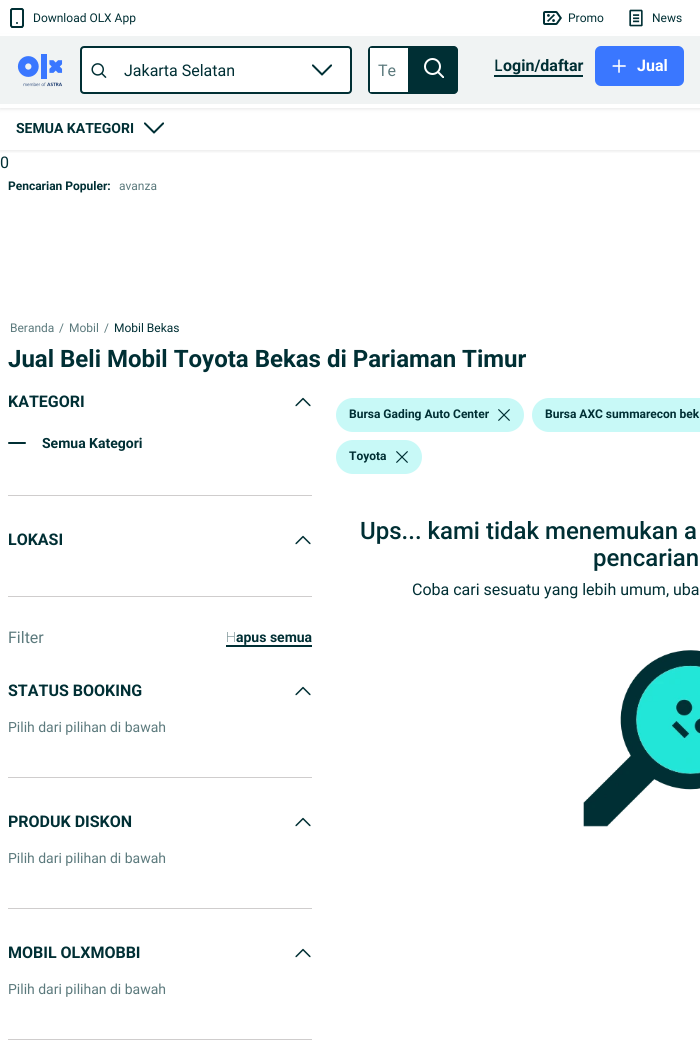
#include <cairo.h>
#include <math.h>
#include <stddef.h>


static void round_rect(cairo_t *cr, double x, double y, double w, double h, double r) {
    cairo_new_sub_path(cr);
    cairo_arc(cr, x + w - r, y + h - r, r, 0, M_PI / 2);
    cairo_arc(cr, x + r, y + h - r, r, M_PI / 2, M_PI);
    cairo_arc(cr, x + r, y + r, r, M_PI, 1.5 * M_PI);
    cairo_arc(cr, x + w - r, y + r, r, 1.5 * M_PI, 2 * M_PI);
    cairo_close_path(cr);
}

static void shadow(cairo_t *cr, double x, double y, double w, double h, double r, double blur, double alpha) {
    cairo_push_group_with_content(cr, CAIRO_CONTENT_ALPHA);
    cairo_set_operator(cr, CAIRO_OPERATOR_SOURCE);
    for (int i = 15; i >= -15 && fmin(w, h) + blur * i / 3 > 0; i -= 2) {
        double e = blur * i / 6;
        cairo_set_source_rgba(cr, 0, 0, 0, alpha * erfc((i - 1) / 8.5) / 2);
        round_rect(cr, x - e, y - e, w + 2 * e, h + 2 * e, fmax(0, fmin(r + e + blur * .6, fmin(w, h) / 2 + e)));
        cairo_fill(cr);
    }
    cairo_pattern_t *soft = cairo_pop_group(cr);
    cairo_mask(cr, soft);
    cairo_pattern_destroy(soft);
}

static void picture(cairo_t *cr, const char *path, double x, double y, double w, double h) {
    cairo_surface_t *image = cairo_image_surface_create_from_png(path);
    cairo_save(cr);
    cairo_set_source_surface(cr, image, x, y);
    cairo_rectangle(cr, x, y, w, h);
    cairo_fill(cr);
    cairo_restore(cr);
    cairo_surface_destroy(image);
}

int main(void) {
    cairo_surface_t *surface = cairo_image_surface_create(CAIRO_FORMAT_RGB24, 700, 1063);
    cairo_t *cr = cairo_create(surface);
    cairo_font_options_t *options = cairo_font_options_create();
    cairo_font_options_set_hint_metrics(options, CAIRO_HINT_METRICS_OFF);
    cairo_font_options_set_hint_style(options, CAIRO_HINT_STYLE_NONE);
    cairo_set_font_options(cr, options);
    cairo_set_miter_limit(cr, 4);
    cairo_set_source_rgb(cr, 1, 1, 1);
    cairo_paint(cr);
    cairo_set_source_rgb(cr, 0, 0, 0);
    shadow(cr, 0, 37, 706, 72, 0, 2, 0.1);
    cairo_save(cr);
    cairo_rectangle(cr, 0, 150, 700, 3);
    cairo_clip(cr);
    shadow(cr, 0, 39, 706, 112, 0, 2, 0.1);
    cairo_restore(cr);
    cairo_set_source_rgb(cr, 1, 1, 1);
    cairo_rectangle(cr, 0, 104, 700, 4);
    cairo_fill(cr);
    cairo_rectangle(cr, 0, 34, 700, 2);
    cairo_fill(cr);
    picture(cr, "img1.png", 10, 8, 14, 20);
    cairo_select_font_face(cr, "Roboto", CAIRO_FONT_SLANT_NORMAL, CAIRO_FONT_WEIGHT_NORMAL);
    cairo_set_font_size(cr, 12);
    cairo_set_source_rgb(cr, 0, 0.184, 0.204);
    cairo_move_to(cr, 33, 22);
    cairo_show_text(cr, "Download OLX App");
    picture(cr, "img2.png", 543, 11, 19, 14);
    cairo_move_to(cr, 568, 22);
    cairo_show_text(cr, "Promo");
    picture(cr, "img3.png", 629, 9, 14, 18);
    cairo_move_to(cr, 652, 22);
    cairo_show_text(cr, "News");
    cairo_set_source_rgb(cr, 0.941, 0.953, 0.953);
    cairo_rectangle(cr, 0, 36, 700, 68);
    cairo_fill(cr);
    picture(cr, "img4.png", 17, 54, 46, 33);
    cairo_set_source_rgb(cr, 1, 1, 1);
    round_rect(cr, 81, 47, 270, 46, 3);
    cairo_fill_preserve(cr);
    cairo_set_source_rgb(cr, 0, 0.184, 0.204);
    cairo_stroke(cr);
    picture(cr, "img5.png", 91, 63, 16, 15);
    cairo_set_font_size(cr, 16);
    cairo_move_to(cr, 124, 76);
    cairo_show_text(cr, "Jakarta Selatan");
    picture(cr, "img6.png", 312, 64, 20, 12);
    cairo_new_path(cr);
    cairo_move_to(cr, 372, 47);
    cairo_line_to(cr, 409, 47);
    cairo_line_to(cr, 409, 93);
    cairo_line_to(cr, 372, 93);
    cairo_curve_to(cr, 370.5, 93, 369, 91.5, 369, 90);
    cairo_line_to(cr, 369, 50);
    cairo_curve_to(cr, 369, 48.5, 370.5, 47, 372, 47);
    cairo_close_path(cr);
    cairo_stroke(cr);
    cairo_set_source_rgb(cr, 1, 1, 1);
    cairo_rectangle(cr, 370, 48, 38, 44);
    cairo_fill(cr);
    cairo_set_source_rgb(cr, 0.361, 0.478, 0.49);
    cairo_move_to(cr, 378, 76);
    cairo_show_text(cr, "Te");
    cairo_set_source_rgb(cr, 0, 0.184, 0.204);
    cairo_new_path(cr);
    cairo_move_to(cr, 410, 46);
    cairo_line_to(cr, 454, 46);
    cairo_curve_to(cr, 456, 46, 458, 48, 458, 50);
    cairo_line_to(cr, 458, 90);
    cairo_curve_to(cr, 458, 92, 456, 94, 454, 94);
    cairo_line_to(cr, 410, 94);
    cairo_close_path(cr);
    cairo_fill(cr);
    picture(cr, "img7.png", 424, 58, 20, 20);
    cairo_rectangle(cr, 494, 75, 89, 2);
    cairo_fill(cr);
    cairo_select_font_face(cr, "Noto Sans Medium", CAIRO_FONT_SLANT_NORMAL, CAIRO_FONT_WEIGHT_NORMAL);
    cairo_move_to(cr, 494, 71);
    cairo_show_text(cr, "L");
    cairo_select_font_face(cr, "Roboto", CAIRO_FONT_SLANT_NORMAL, CAIRO_FONT_WEIGHT_BOLD);
    cairo_move_to(cr, 503, 71);
    cairo_show_text(cr, "ogin/daftar");
    cairo_set_source_rgb(cr, 0.227, 0.467, 1);
    round_rect(cr, 595, 46, 89, 40, 6);
    cairo_fill(cr);
    picture(cr, "img8.png", 612, 59, 14, 14);
    cairo_set_source_rgb(cr, 1, 1, 1);
    cairo_move_to(cr, 637, 71);
    cairo_show_text(cr, "Jual");
    cairo_set_font_size(cr, 14);
    cairo_set_source_rgb(cr, 0, 0.184, 0.204);
    cairo_move_to(cr, 16, 133);
    cairo_show_text(cr, "SEMUA KATEGORI");
    picture(cr, "img6.png", 144, 122, 20, 12);
    cairo_select_font_face(cr, "Roboto", CAIRO_FONT_SLANT_NORMAL, CAIRO_FONT_WEIGHT_NORMAL);
    cairo_set_font_size(cr, 16);
    cairo_move_to(cr, 0, 168);
    cairo_show_text(cr, "0");
    cairo_select_font_face(cr, "Roboto", CAIRO_FONT_SLANT_NORMAL, CAIRO_FONT_WEIGHT_BOLD);
    cairo_set_font_size(cr, 12);
    cairo_move_to(cr, 8, 190);
    cairo_show_text(cr, "Pencarian Populer:");
    cairo_select_font_face(cr, "Roboto", CAIRO_FONT_SLANT_NORMAL, CAIRO_FONT_WEIGHT_NORMAL);
    cairo_set_source_rgb(cr, 0.361, 0.478, 0.49);
    cairo_move_to(cr, 119, 190);
    cairo_show_text(cr, "avanza");
    cairo_move_to(cr, 10, 332);
    cairo_show_text(cr, "Beranda");
    cairo_move_to(cr, 59, 332);
    cairo_show_text(cr, "/");
    cairo_move_to(cr, 69, 332);
    cairo_show_text(cr, "Mobil");
    cairo_move_to(cr, 104, 332);
    cairo_show_text(cr, "/");
    cairo_set_source_rgb(cr, 0, 0.184, 0.204);
    cairo_move_to(cr, 114, 332);
    cairo_show_text(cr, "Mobil Bekas");
    cairo_select_font_face(cr, "Roboto", CAIRO_FONT_SLANT_NORMAL, CAIRO_FONT_WEIGHT_BOLD);
    cairo_set_font_size(cr, 24);
    cairo_move_to(cr, 8, 367);
    cairo_show_text(cr, "Jual Beli Mobil Toyota Bekas di Pariaman Timur");
    cairo_set_font_size(cr, 16);
    cairo_move_to(cr, 8, 407);
    cairo_show_text(cr, "KATEGORI");
    picture(cr, "img9.png", 295, 397, 16, 10);
    round_rect(cr, 8, 442, 18, 2, 1);
    cairo_fill(cr);
    cairo_set_font_size(cr, 14);
    cairo_move_to(cr, 42, 448);
    cairo_show_text(cr, "Semua Kategori");
    cairo_set_source_rgb(cr, 0.812, 0.804, 0.804);
    cairo_rectangle(cr, 8, 495, 304, 1);
    cairo_fill(cr);
    cairo_set_font_size(cr, 16);
    cairo_set_source_rgb(cr, 0, 0.184, 0.204);
    cairo_move_to(cr, 8, 545);
    cairo_show_text(cr, "LOKASI");
    picture(cr, "img9.png", 295, 535, 16, 10);
    cairo_set_source_rgb(cr, 0.812, 0.804, 0.804);
    cairo_rectangle(cr, 8, 596, 304, 1);
    cairo_fill(cr);
    cairo_select_font_face(cr, "Roboto", CAIRO_FONT_SLANT_NORMAL, CAIRO_FONT_WEIGHT_NORMAL);
    cairo_set_source_rgb(cr, 0.361, 0.478, 0.49);
    cairo_move_to(cr, 8, 643);
    cairo_show_text(cr, "Filter");
    cairo_set_source_rgb(cr, 0, 0.184, 0.204);
    cairo_rectangle(cr, 226, 645, 86, 2);
    cairo_fill(cr);
    cairo_select_font_face(cr, "Noto Sans Thin", CAIRO_FONT_SLANT_NORMAL, CAIRO_FONT_WEIGHT_NORMAL);
    cairo_set_font_size(cr, 14);
    cairo_move_to(cr, 226, 642);
    cairo_show_text(cr, "H");
    cairo_select_font_face(cr, "Roboto", CAIRO_FONT_SLANT_NORMAL, CAIRO_FONT_WEIGHT_BOLD);
    cairo_move_to(cr, 236, 642);
    cairo_show_text(cr, "apus semua");
    cairo_set_font_size(cr, 16);
    cairo_move_to(cr, 8, 696);
    cairo_show_text(cr, "STATUS BOOKING");
    picture(cr, "img9.png", 295, 686, 16, 10);
    cairo_select_font_face(cr, "Roboto", CAIRO_FONT_SLANT_NORMAL, CAIRO_FONT_WEIGHT_NORMAL);
    cairo_set_font_size(cr, 14);
    cairo_set_source_rgb(cr, 0.361, 0.478, 0.49);
    cairo_move_to(cr, 8, 732);
    cairo_show_text(cr, "Pilih dari pilihan di bawah");
    cairo_set_source_rgb(cr, 0.812, 0.804, 0.804);
    cairo_rectangle(cr, 8, 777, 304, 1);
    cairo_fill(cr);
    cairo_select_font_face(cr, "Roboto", CAIRO_FONT_SLANT_NORMAL, CAIRO_FONT_WEIGHT_BOLD);
    cairo_set_font_size(cr, 16);
    cairo_set_source_rgb(cr, 0, 0.184, 0.204);
    cairo_move_to(cr, 8, 827);
    cairo_show_text(cr, "PRODUK DISKON");
    picture(cr, "img9.png", 295, 817, 16, 10);
    cairo_select_font_face(cr, "Roboto", CAIRO_FONT_SLANT_NORMAL, CAIRO_FONT_WEIGHT_NORMAL);
    cairo_set_font_size(cr, 14);
    cairo_set_source_rgb(cr, 0.361, 0.478, 0.49);
    cairo_move_to(cr, 8, 863);
    cairo_show_text(cr, "Pilih dari pilihan di bawah");
    cairo_set_source_rgb(cr, 0.812, 0.804, 0.804);
    cairo_rectangle(cr, 8, 908, 304, 1);
    cairo_fill(cr);
    cairo_select_font_face(cr, "Roboto", CAIRO_FONT_SLANT_NORMAL, CAIRO_FONT_WEIGHT_BOLD);
    cairo_set_font_size(cr, 16);
    cairo_set_source_rgb(cr, 0, 0.184, 0.204);
    cairo_move_to(cr, 8, 958);
    cairo_show_text(cr, "MOBIL OLXMOBBI");
    picture(cr, "img9.png", 295, 948, 16, 10);
    cairo_select_font_face(cr, "Roboto", CAIRO_FONT_SLANT_NORMAL, CAIRO_FONT_WEIGHT_NORMAL);
    cairo_set_font_size(cr, 14);
    cairo_set_source_rgb(cr, 0.361, 0.478, 0.49);
    cairo_move_to(cr, 8, 994);
    cairo_show_text(cr, "Pilih dari pilihan di bawah");
    cairo_set_source_rgb(cr, 0.812, 0.804, 0.804);
    cairo_rectangle(cr, 8, 1039, 304, 1);
    cairo_fill(cr);
    cairo_set_source_rgb(cr, 0.784, 0.973, 0.965);
    round_rect(cr, 336, 398, 188, 34, 17);
    cairo_fill(cr);
    cairo_select_font_face(cr, "Roboto", CAIRO_FONT_SLANT_NORMAL, CAIRO_FONT_WEIGHT_BOLD);
    cairo_set_font_size(cr, 12);
    cairo_set_source_rgb(cr, 0, 0.184, 0.204);
    cairo_move_to(cr, 349, 418);
    cairo_show_text(cr, "Bursa Gading Auto Center");
    picture(cr, "img10.png", 498, 409, 12, 12);
    cairo_set_source_rgb(cr, 0.784, 0.973, 0.965);
    round_rect(cr, 532, 398, 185, 34, 17);
    cairo_fill(cr);
    cairo_set_source_rgb(cr, 0, 0.184, 0.204);
    cairo_move_to(cr, 545, 418);
    cairo_show_text(cr, "Bursa AXC summarecon bek");
    cairo_set_source_rgb(cr, 0.784, 0.973, 0.965);
    round_rect(cr, 336, 440, 86, 34, 17);
    cairo_fill(cr);
    cairo_set_source_rgb(cr, 0, 0.184, 0.204);
    cairo_move_to(cr, 349, 460);
    cairo_show_text(cr, "Toyota");
    picture(cr, "img10.png", 396, 451, 12, 12);
    cairo_select_font_face(cr, "Roboto Medium", CAIRO_FONT_SLANT_NORMAL, CAIRO_FONT_WEIGHT_NORMAL);
    cairo_set_font_size(cr, 24);
    cairo_move_to(cr, 360, 539);
    cairo_show_text(cr, "Ups... kami tidak menemukan a");
    cairo_move_to(cr, 593, 566);
    cairo_show_text(cr, "pencarian");
    cairo_select_font_face(cr, "Roboto", CAIRO_FONT_SLANT_NORMAL, CAIRO_FONT_WEIGHT_NORMAL);
    cairo_set_font_size(cr, 16);
    cairo_move_to(cr, 412, 595);
    cairo_show_text(cr, "Coba cari sesuatu yang lebih umum, uba");
    picture(cr, "img11.png", 583, 650, 117, 177);
    cairo_surface_write_to_png(surface, "page.png");
    cairo_font_options_destroy(options);
    cairo_destroy(cr);
    cairo_surface_destroy(surface);
    return 0;
}
